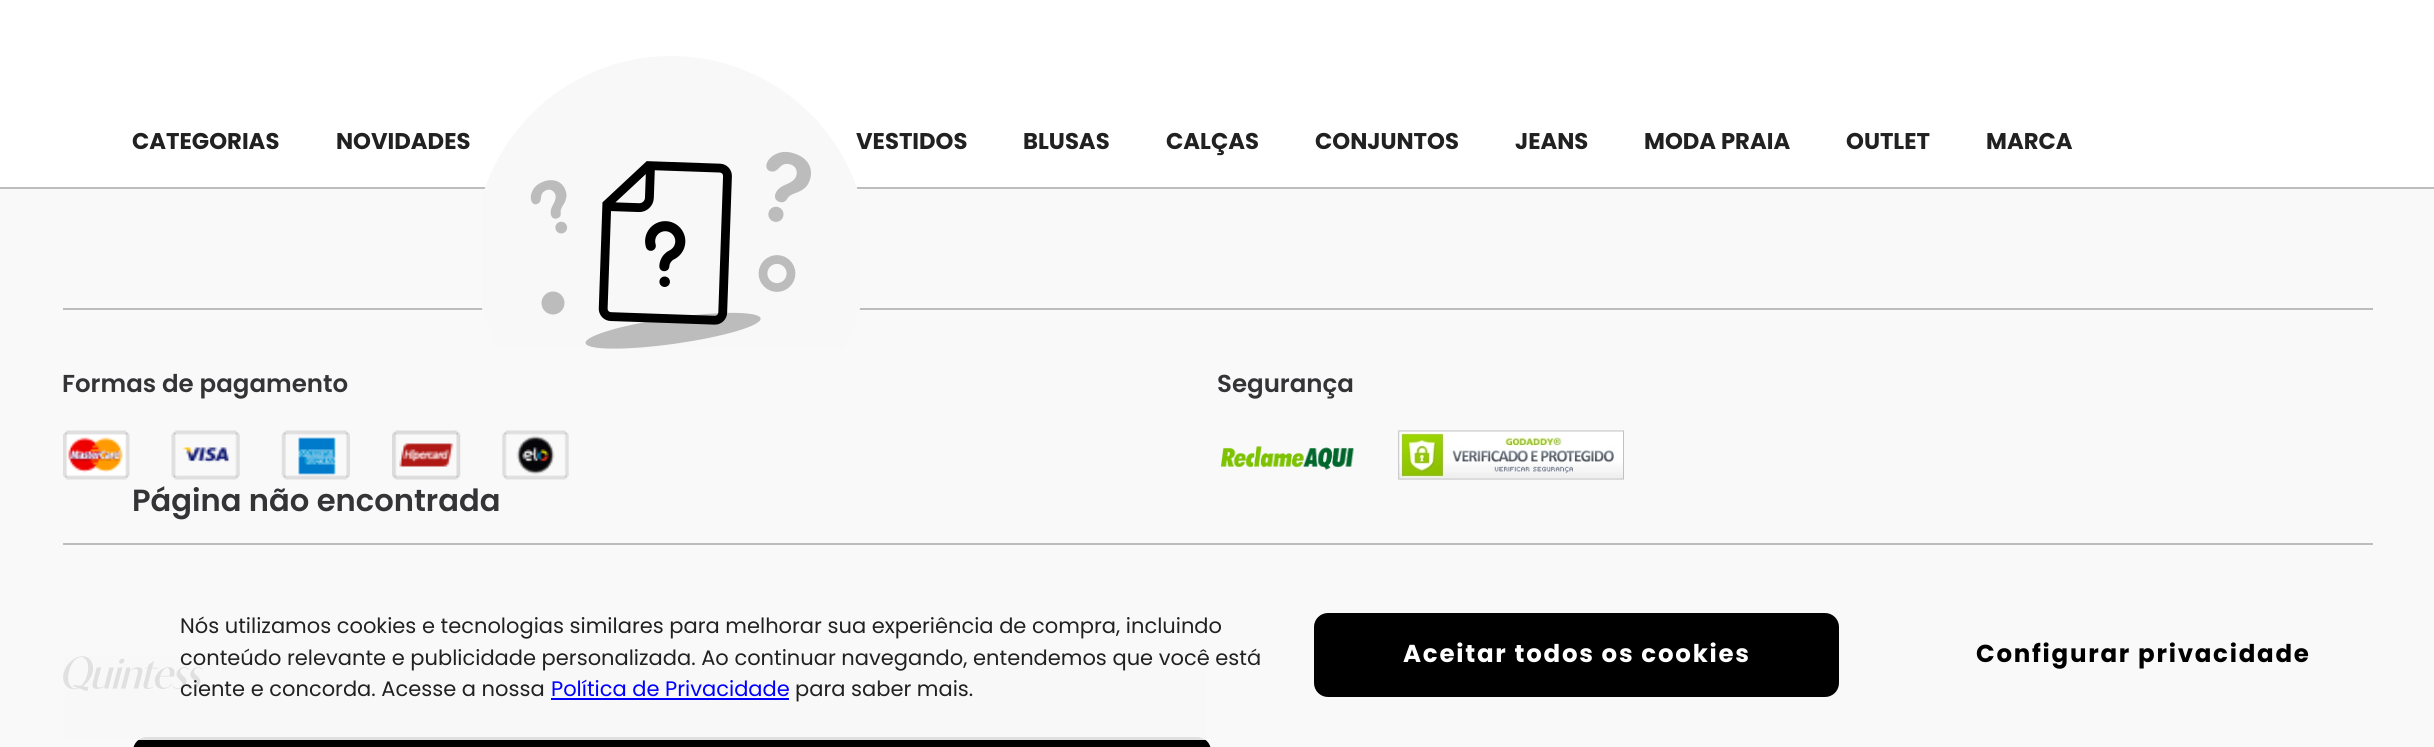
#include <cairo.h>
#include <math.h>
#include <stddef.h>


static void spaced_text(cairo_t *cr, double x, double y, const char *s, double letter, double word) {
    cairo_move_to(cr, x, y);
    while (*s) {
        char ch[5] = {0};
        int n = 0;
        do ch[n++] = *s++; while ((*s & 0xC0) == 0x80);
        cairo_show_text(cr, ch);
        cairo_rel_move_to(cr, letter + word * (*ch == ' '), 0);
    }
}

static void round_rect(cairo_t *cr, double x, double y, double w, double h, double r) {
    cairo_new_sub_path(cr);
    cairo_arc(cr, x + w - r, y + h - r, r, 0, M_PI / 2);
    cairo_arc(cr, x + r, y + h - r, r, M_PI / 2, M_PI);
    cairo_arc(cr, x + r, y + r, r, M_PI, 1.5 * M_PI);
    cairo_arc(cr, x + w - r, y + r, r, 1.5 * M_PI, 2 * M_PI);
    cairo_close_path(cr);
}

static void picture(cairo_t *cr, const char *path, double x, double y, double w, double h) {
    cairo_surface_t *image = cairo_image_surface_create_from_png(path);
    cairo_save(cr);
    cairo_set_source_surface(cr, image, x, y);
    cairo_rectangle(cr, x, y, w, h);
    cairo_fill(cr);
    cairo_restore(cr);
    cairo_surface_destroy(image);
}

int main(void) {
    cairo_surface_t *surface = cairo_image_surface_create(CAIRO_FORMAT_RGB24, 2434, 747);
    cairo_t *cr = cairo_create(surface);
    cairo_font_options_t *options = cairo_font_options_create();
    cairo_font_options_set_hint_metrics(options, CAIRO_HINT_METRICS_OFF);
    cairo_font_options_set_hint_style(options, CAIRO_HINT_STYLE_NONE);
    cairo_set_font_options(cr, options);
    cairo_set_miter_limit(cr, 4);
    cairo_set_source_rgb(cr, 0.973, 0.973, 0.973);
    cairo_paint(cr);
    cairo_set_source_rgb(cr, 1, 1, 1);
    cairo_rectangle(cr, 0, 0, 2434, 187);
    cairo_fill(cr);
    cairo_set_source_rgb(cr, 0.741, 0.741, 0.741);
    cairo_rectangle(cr, 0, 187, 2434, 2);
    cairo_fill(cr);
    cairo_select_font_face(cr, "Poppins", CAIRO_FONT_SLANT_NORMAL, CAIRO_FONT_WEIGHT_BOLD);
    cairo_set_font_size(cr, 22.75);
    cairo_set_source_rgb(cr, 0.129, 0.129, 0.129);
    cairo_move_to(cr, 132, 149);
    cairo_show_text(cr, "CATEGORIAS");
    cairo_move_to(cr, 336, 149);
    cairo_show_text(cr, "NOVIDADES");
    cairo_move_to(cr, 856, 149);
    cairo_show_text(cr, "VESTIDOS");
    cairo_move_to(cr, 1023, 149);
    cairo_show_text(cr, "BLUSAS");
    cairo_move_to(cr, 1166, 149);
    cairo_show_text(cr, "CALÇAS");
    cairo_move_to(cr, 1315, 149);
    cairo_show_text(cr, "CONJUNTOS");
    cairo_move_to(cr, 1515, 149);
    cairo_show_text(cr, "JEANS");
    cairo_move_to(cr, 1644, 149);
    cairo_show_text(cr, "MODA PRAIA");
    cairo_move_to(cr, 1846, 149);
    cairo_show_text(cr, "OUTLET");
    cairo_move_to(cr, 1986, 149);
    cairo_show_text(cr, "MARCA");
    cairo_set_source_rgb(cr, 0.741, 0.741, 0.741);
    cairo_rectangle(cr, 63, 308, 2310, 2);
    cairo_fill(cr);
    cairo_select_font_face(cr, "Poppins SemiBold", CAIRO_FONT_SLANT_NORMAL, CAIRO_FONT_WEIGHT_NORMAL);
    cairo_set_font_size(cr, 24.5);
    cairo_set_source_rgb(cr, 0.204, 0.204, 0.212);
    cairo_move_to(cr, 62, 392);
    cairo_show_text(cr, "Formas de pagamento");
    picture(cr, "img1.png", 63, 430, 67, 50);
    picture(cr, "img2.png", 171, 430, 69, 50);
    picture(cr, "img3.png", 281, 430, 69, 50);
    picture(cr, "img4.png", 392, 430, 69, 50);
    picture(cr, "img5.png", 502, 430, 67, 50);
    cairo_move_to(cr, 1217, 392);
    cairo_show_text(cr, "Segurança");
    picture(cr, "img6.png", 1220, 446, 134, 24);
    picture(cr, "img7.png", 1398, 430, 226, 50);
    cairo_set_source_rgb(cr, 0.741, 0.741, 0.741);
    cairo_rectangle(cr, 63, 543, 2310, 2);
    cairo_fill(cr);
    picture(cr, "img8.png", 63, 656, 140, 35);
    picture(cr, "img9.png", 482, 56, 378, 293);
    cairo_set_font_size(cr, 30.6);
    cairo_set_source_rgb(cr, 0.204, 0.204, 0.212);
    cairo_move_to(cr, 132, 511);
    cairo_show_text(cr, "Página não encontrada");
    cairo_set_source_rgb(cr, 0, 0, 0);
    round_rect(cr, 133, 737, 1078, 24, 14);
    cairo_fill(cr);
    cairo_set_source_rgba(cr, 0.973, 0.973, 0.973, 0.9);
    cairo_rectangle(cr, 63, 656, 1143, 84);
    cairo_fill(cr);
    cairo_select_font_face(cr, "Poppins", CAIRO_FONT_SLANT_NORMAL, CAIRO_FONT_WEIGHT_NORMAL);
    cairo_set_font_size(cr, 21);
    cairo_set_source_rgb(cr, 0.129, 0.129, 0.129);
    cairo_move_to(cr, 180, 633);
    cairo_show_text(cr, "Nós utilizamos cookies e tecnologias similares para melhorar sua experiência de compra, incluindo");
    cairo_move_to(cr, 180, 665);
    cairo_show_text(cr, "conteúdo relevante e publicidade personalizada. Ao continuar navegando, entendemos que você está");
    cairo_move_to(cr, 180, 696);
    cairo_show_text(cr, "ciente e concorda. Acesse a nossa");
    cairo_set_source_rgb(cr, 0, 0, 1);
    cairo_move_to(cr, 551, 696);
    cairo_show_text(cr, "Política de Privacidade");
    cairo_rectangle(cr, 551, 698, 238, 2);
    cairo_fill(cr);
    cairo_set_source_rgb(cr, 0.129, 0.129, 0.129);
    cairo_move_to(cr, 795, 696);
    cairo_show_text(cr, "para saber mais.");
    cairo_set_source_rgb(cr, 0, 0, 0);
    round_rect(cr, 1314, 613, 525, 84, 14);
    cairo_fill(cr);
    cairo_select_font_face(cr, "Poppins", CAIRO_FONT_SLANT_NORMAL, CAIRO_FONT_WEIGHT_BOLD);
    cairo_set_font_size(cr, 24.5);
    cairo_set_source_rgb(cr, 1, 1, 1);
    spaced_text(cr, 1403, 662, "Aceitar todos os cookies", 1.75, 0);
    cairo_set_source_rgb(cr, 0, 0, 0);
    spaced_text(cr, 1976, 662, "Configurar privacidade", 1.75, 0);
    cairo_surface_write_to_png(surface, "page.png");
    cairo_font_options_destroy(options);
    cairo_destroy(cr);
    cairo_surface_destroy(surface);
    return 0;
}
